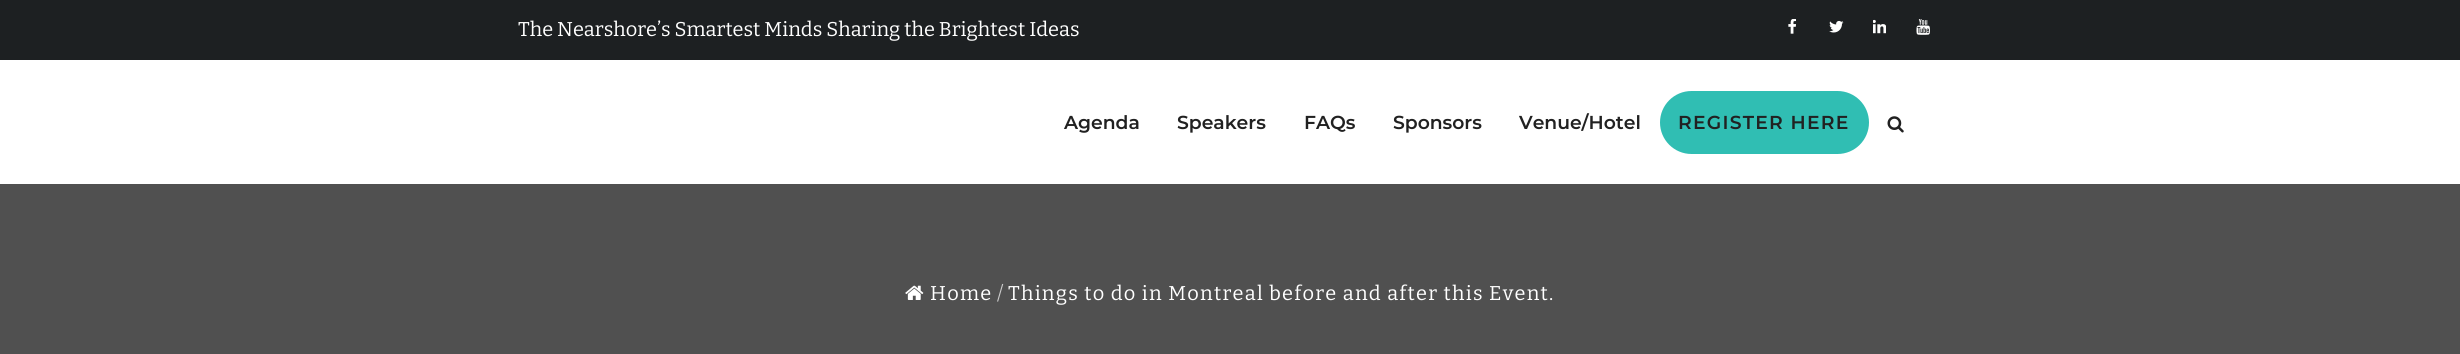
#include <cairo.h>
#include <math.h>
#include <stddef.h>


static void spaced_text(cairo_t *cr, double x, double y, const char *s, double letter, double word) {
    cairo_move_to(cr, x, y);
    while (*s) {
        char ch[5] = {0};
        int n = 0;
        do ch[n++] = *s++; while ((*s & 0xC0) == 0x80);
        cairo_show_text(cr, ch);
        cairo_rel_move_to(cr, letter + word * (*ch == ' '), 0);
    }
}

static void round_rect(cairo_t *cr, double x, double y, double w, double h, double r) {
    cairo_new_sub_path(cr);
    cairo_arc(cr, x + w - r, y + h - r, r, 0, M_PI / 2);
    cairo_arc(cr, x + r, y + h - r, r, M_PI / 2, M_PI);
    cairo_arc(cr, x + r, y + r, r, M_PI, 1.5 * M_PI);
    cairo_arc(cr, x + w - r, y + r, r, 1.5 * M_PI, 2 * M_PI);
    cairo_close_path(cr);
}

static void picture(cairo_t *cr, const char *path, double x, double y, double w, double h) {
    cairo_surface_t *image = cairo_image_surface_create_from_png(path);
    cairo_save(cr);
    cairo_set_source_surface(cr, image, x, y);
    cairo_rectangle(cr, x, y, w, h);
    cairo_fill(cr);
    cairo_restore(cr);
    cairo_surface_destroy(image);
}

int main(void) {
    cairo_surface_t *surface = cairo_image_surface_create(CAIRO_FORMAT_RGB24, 2460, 354);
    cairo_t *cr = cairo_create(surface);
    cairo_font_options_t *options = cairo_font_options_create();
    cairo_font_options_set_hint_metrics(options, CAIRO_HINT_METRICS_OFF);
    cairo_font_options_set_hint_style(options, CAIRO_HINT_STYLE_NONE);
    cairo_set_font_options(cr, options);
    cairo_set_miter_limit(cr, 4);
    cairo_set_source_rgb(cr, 0.314, 0.314, 0.314);
    cairo_paint(cr);
    cairo_set_source_rgb(cr, 0.114, 0.125, 0.133);
    cairo_rectangle(cr, 0, 0, 2460, 60);
    cairo_fill(cr);
    cairo_select_font_face(cr, "Bitter", CAIRO_FONT_SLANT_NORMAL, CAIRO_FONT_WEIGHT_NORMAL);
    cairo_set_font_size(cr, 20);
    cairo_set_source_rgb(cr, 1, 1, 1);
    cairo_move_to(cr, 518, 36);
    cairo_show_text(cr, "The Nearshore’s Smartest Minds Sharing the Brightest Ideas");
    picture(cr, "img1.png", 1788, 19, 8, 15);
    picture(cr, "img2.png", 1829, 20, 15, 13);
    picture(cr, "img3.png", 1873, 19, 13, 15);
    picture(cr, "img4.png", 1916, 19, 14, 16);
    cairo_rectangle(cr, 0, 60, 2460, 124);
    cairo_fill(cr);
    cairo_select_font_face(cr, "Montserrat SemiBold", CAIRO_FONT_SLANT_NORMAL, CAIRO_FONT_WEIGHT_NORMAL);
    cairo_set_font_size(cr, 18.75);
    cairo_set_source_rgb(cr, 0.129, 0.129, 0.129);
    cairo_move_to(cr, 1064, 129);
    cairo_show_text(cr, "Agenda");
    cairo_move_to(cr, 1177, 129);
    cairo_show_text(cr, "Speakers");
    cairo_move_to(cr, 1304, 129);
    cairo_show_text(cr, "FAQs");
    cairo_move_to(cr, 1393, 129);
    cairo_show_text(cr, "Sponsors");
    cairo_move_to(cr, 1519, 129);
    cairo_show_text(cr, "Venue/Hotel");
    cairo_set_source_rgb(cr, 0.188, 0.745, 0.702);
    round_rect(cr, 1660, 91, 209, 63, 31.5);
    cairo_fill(cr);
    cairo_set_source_rgb(cr, 0.129, 0.129, 0.129);
    spaced_text(cr, 1678, 129, "REGISTER HERE", 1.25, 0);
    picture(cr, "img5.png", 1887, 116, 17, 17);
    picture(cr, "img6.png", 905, 285, 19, 15);
    cairo_select_font_face(cr, "Bitter", CAIRO_FONT_SLANT_NORMAL, CAIRO_FONT_WEIGHT_NORMAL);
    cairo_set_font_size(cr, 20);
    cairo_set_source_rgb(cr, 1, 1, 1);
    spaced_text(cr, 930, 300, "Home", 1.25, 0);
    cairo_set_source_rgb(cr, 0.8, 0.8, 0.8);
    spaced_text(cr, 997, 300, "/", 1.25, 0);
    cairo_set_source_rgb(cr, 1, 1, 1);
    spaced_text(cr, 1008, 300, "Things to do in Montreal before and after this Event.", 1.25, 0);
    cairo_surface_write_to_png(surface, "page.png");
    cairo_font_options_destroy(options);
    cairo_destroy(cr);
    cairo_surface_destroy(surface);
    return 0;
}
